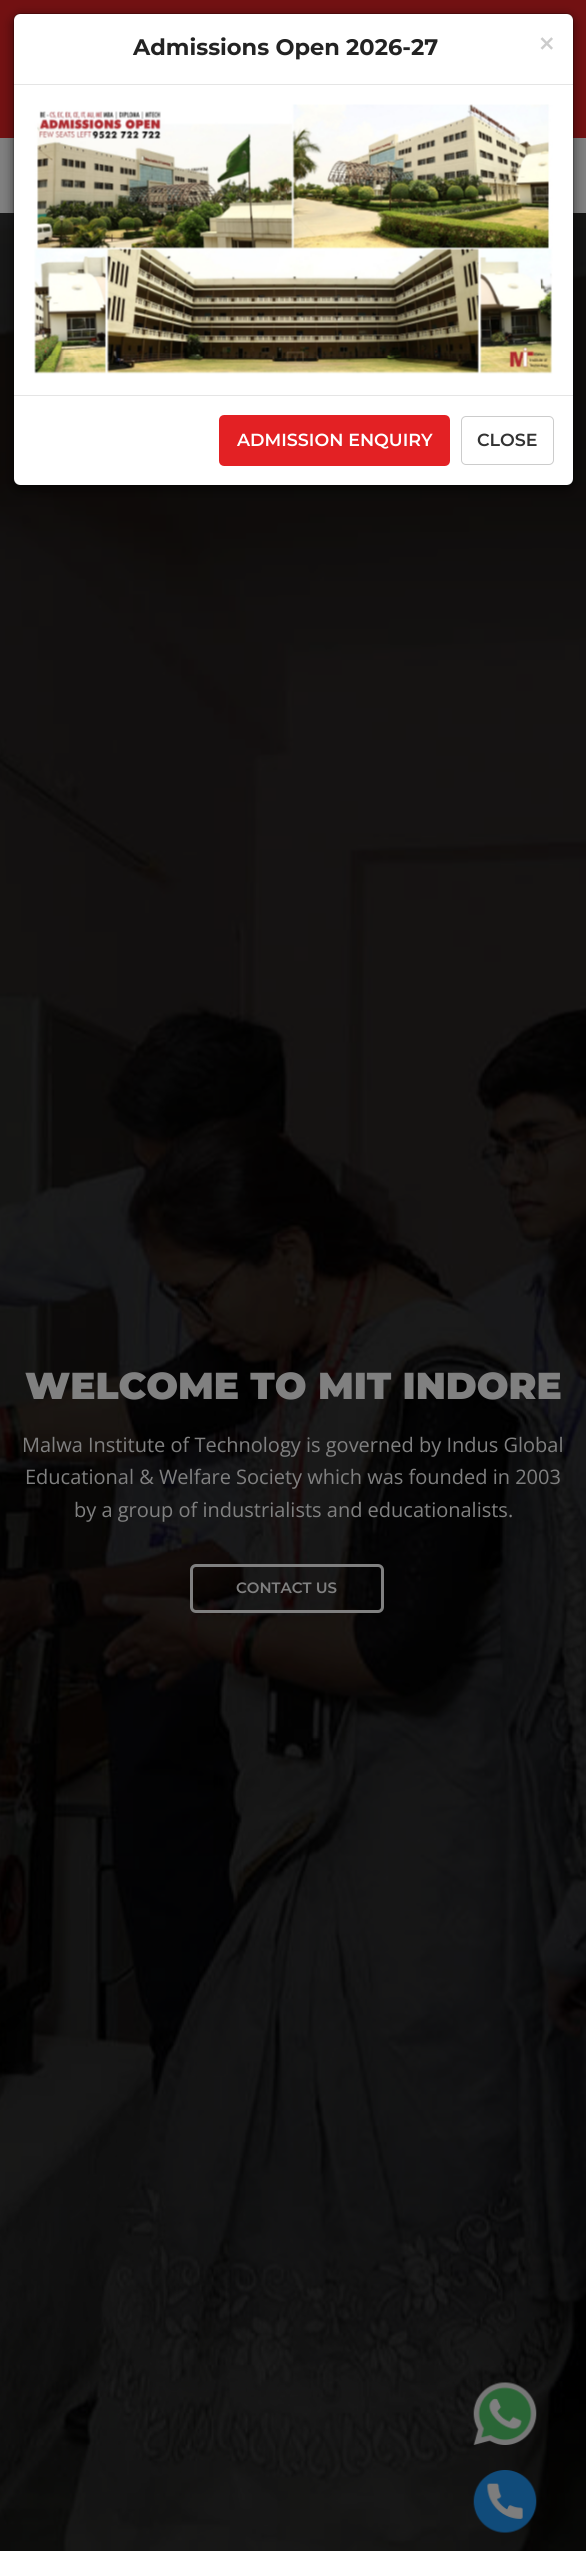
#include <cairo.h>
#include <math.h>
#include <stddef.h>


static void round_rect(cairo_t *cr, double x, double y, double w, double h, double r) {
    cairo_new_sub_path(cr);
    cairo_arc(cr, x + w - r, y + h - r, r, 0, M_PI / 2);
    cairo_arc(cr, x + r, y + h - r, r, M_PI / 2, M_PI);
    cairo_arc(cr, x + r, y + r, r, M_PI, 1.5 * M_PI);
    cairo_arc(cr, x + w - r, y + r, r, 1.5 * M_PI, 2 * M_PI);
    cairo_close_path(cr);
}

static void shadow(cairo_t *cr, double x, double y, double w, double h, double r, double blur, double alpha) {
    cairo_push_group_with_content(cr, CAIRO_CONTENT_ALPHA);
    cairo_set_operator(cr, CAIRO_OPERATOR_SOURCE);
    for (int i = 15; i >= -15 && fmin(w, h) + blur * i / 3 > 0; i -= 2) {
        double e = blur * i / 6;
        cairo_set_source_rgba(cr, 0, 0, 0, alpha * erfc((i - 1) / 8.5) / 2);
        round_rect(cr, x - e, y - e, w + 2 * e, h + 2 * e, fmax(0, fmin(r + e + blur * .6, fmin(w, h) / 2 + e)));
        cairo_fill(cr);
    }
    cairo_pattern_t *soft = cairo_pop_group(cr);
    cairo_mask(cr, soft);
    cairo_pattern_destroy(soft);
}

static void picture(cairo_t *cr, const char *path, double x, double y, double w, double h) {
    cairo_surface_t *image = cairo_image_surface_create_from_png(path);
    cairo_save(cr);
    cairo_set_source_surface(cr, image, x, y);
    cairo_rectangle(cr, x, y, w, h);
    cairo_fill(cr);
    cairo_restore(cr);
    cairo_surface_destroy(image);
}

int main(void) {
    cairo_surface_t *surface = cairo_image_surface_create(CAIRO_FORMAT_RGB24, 586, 2551);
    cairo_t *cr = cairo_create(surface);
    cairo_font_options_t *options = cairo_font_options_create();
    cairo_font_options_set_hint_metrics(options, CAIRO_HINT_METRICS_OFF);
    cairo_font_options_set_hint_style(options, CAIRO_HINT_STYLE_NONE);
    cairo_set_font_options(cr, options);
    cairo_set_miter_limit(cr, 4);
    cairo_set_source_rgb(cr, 0.447, 0.067, 0.071);
    cairo_paint(cr);
    cairo_set_source_rgb(cr, 0.502, 0.502, 0.502);
    cairo_rectangle(cr, 0, 138, 586, 75);
    cairo_fill(cr);
    picture(cr, "img2.png", 0, 213, 586, 2338);
    cairo_set_source_rgb(cr, 0, 0, 0);
    shadow(cr, 13, 16, 561, 474, 8, 5.5, 0.5);
    cairo_set_source_rgb(cr, 1, 1, 1);
    round_rect(cr, 14, 14, 559, 471, 6);
    cairo_fill(cr);
    round_rect(cr, 13.5, 13.5, 560, 472, 7.5);
    cairo_set_source_rgba(cr, 0, 0, 0, 0.2);
    cairo_set_line_width(cr, 1);
    cairo_stroke(cr);
    cairo_set_source_rgb(cr, 0.898, 0.898, 0.898);
    cairo_rectangle(cr, 14, 84, 559, 1);
    cairo_fill(cr);
    cairo_select_font_face(cr, "Montserrat", CAIRO_FONT_SLANT_NORMAL, CAIRO_FONT_WEIGHT_BOLD);
    cairo_set_font_size(cr, 22.5);
    cairo_set_source_rgb(cr, 0.137, 0.137, 0.137);
    cairo_move_to(cr, 133, 55);
    cairo_show_text(cr, "Admissions Open 2026-27");
    cairo_select_font_face(cr, "Open Sans", CAIRO_FONT_SLANT_NORMAL, CAIRO_FONT_WEIGHT_BOLD);
    cairo_set_font_size(cr, 26);
    cairo_set_source_rgb(cr, 0.8, 0.8, 0.8);
    cairo_move_to(cr, 539, 53);
    cairo_show_text(cr, "×");
    picture(cr, "img1.png", 34, 104, 519, 270);
    cairo_set_source_rgb(cr, 0.898, 0.898, 0.898);
    cairo_rectangle(cr, 14, 395, 559, 1);
    cairo_fill(cr);
    cairo_set_source_rgb(cr, 0.89, 0.129, 0.141);
    round_rect(cr, 220.5, 416.5, 228, 48, 3.5);
    cairo_fill_preserve(cr);
    cairo_set_line_width(cr, 3);
    cairo_stroke(cr);
    cairo_select_font_face(cr, "Montserrat SemiBold", CAIRO_FONT_SLANT_NORMAL, CAIRO_FONT_WEIGHT_NORMAL);
    cairo_set_font_size(cr, 17.5);
    cairo_set_source_rgb(cr, 1, 1, 1);
    cairo_move_to(cr, 237, 446);
    cairo_show_text(cr, "ADMISSION ENQUIRY");
    round_rect(cr, 461.5, 416.5, 92, 48, 4.5);
    cairo_set_source_rgb(cr, 0.8, 0.8, 0.8);
    cairo_set_line_width(cr, 1);
    cairo_stroke(cr);
    cairo_set_source_rgb(cr, 0.2, 0.2, 0.2);
    cairo_move_to(cr, 477, 446);
    cairo_show_text(cr, "CLOSE");
    cairo_select_font_face(cr, "Montserrat Black", CAIRO_FONT_SLANT_NORMAL, CAIRO_FONT_WEIGHT_NORMAL);
    cairo_set_font_size(cr, 37.5);
    cairo_set_source_rgb(cr, 0.502, 0.502, 0.502);
    cairo_move_to(cr, 25, 1399);
    cairo_show_text(cr, "WELCOME TO MIT INDORE");
    cairo_select_font_face(cr, "Open Sans", CAIRO_FONT_SLANT_NORMAL, CAIRO_FONT_WEIGHT_NORMAL);
    cairo_set_font_size(cr, 20);
    cairo_move_to(cr, 22, 1452);
    cairo_show_text(cr, "Malwa Institute of Technology is governed by Indus Global");
    cairo_move_to(cr, 25, 1484);
    cairo_show_text(cr, "Educational & Welfare Society which was founded in 2003");
    cairo_move_to(cr, 74, 1517);
    cairo_show_text(cr, "by a group of industrialists and educationalists.");
    round_rect(cr, 191.5, 1565.5, 191, 46, 4.5);
    cairo_set_line_width(cr, 3);
    cairo_stroke(cr);
    cairo_select_font_face(cr, "Montserrat SemiBold", CAIRO_FONT_SLANT_NORMAL, CAIRO_FONT_WEIGHT_NORMAL);
    cairo_set_font_size(cr, 15);
    cairo_move_to(cr, 236, 1593);
    cairo_show_text(cr, "CONTACT US");
    picture(cr, "img3.png", 473, 2382, 64, 63);
    picture(cr, "img4.png", 473, 2470, 64, 63);
    cairo_surface_write_to_png(surface, "page.png");
    cairo_font_options_destroy(options);
    cairo_destroy(cr);
    cairo_surface_destroy(surface);
    return 0;
}
